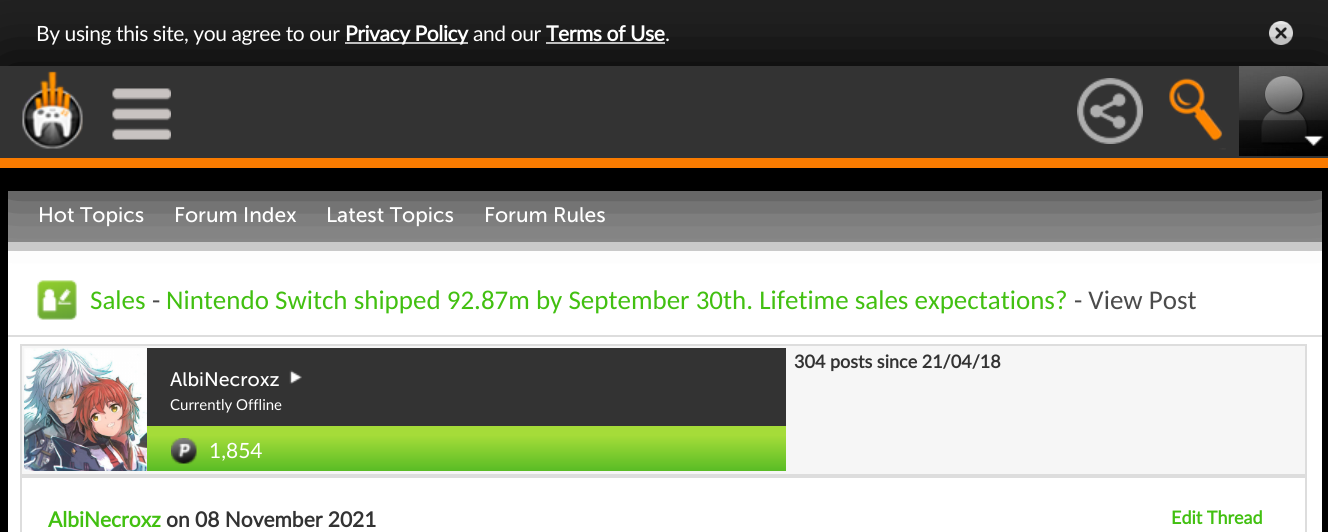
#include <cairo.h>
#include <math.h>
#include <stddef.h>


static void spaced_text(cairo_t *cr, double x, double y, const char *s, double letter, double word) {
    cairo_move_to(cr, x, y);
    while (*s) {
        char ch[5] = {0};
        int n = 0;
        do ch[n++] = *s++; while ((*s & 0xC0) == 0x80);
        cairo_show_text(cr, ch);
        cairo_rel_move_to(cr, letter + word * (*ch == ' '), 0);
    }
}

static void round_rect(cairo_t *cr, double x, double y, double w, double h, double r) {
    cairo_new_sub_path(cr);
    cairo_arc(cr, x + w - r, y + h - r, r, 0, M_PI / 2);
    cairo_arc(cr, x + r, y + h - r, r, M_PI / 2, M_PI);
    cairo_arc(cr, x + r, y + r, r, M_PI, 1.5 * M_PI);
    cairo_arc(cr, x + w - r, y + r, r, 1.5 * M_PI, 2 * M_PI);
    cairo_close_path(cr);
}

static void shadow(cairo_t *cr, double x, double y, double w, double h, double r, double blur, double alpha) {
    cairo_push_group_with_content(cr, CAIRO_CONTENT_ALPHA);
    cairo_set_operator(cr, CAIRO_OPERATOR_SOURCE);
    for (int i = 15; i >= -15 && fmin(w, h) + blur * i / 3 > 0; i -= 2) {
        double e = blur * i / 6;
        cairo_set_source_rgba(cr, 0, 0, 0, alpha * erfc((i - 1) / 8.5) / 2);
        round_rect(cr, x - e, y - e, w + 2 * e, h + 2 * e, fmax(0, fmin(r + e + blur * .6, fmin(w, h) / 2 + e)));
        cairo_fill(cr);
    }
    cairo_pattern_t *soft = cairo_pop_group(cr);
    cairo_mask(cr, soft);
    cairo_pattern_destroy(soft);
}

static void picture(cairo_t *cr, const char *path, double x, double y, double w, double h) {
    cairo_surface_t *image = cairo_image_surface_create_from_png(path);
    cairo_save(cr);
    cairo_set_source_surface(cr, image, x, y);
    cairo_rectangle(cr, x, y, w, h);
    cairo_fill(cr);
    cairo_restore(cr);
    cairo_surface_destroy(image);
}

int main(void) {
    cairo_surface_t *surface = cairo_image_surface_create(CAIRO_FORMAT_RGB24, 1328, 532);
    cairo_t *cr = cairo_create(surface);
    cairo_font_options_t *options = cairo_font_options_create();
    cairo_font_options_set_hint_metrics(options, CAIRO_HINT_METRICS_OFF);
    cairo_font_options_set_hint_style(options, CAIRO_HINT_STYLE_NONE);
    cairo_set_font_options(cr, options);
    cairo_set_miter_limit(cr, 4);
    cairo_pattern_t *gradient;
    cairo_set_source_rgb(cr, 0, 0, 0);
    cairo_paint(cr);
    cairo_set_source_rgb(cr, 0.133, 0.133, 0.133);
    cairo_rectangle(cr, 0, 0, 1328, 66);
    cairo_fill(cr);
    cairo_set_source_rgb(cr, 1, 1, 1);
    cairo_rectangle(cr, 345, 42, 123, 2);
    cairo_fill(cr);
    cairo_rectangle(cr, 546, 42, 119, 2);
    cairo_fill(cr);
    picture(cr, "img7.png", 1269, 21, 24, 24);
    cairo_rectangle(cr, 8, 251, 1314, 281);
    cairo_fill(cr);
    cairo_set_source_rgb(cr, 0.541, 0.541, 0.541);
    cairo_rectangle(cr, 8, 191, 1314, 51);
    cairo_fill(cr);
    cairo_set_source_rgb(cr, 0.804, 0.804, 0.804);
    cairo_rectangle(cr, 8, 242, 1314, 9);
    cairo_fill(cr);
    picture(cr, "img8.png", 37, 280, 40, 40);
    cairo_set_source_rgb(cr, 0, 0, 0);
    shadow(cr, 0, 68, 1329, 102, 0, 37.5, 1);
    cairo_set_source_rgb(cr, 0.2, 0.2, 0.2);
    cairo_rectangle(cr, 0, 66, 1328, 92);
    cairo_fill(cr);
    picture(cr, "img1.png", 22, 71, 61, 78);
    picture(cr, "img2.png", 112, 88, 59, 52);
    picture(cr, "img3.png", 1077, 78, 66, 66);
    picture(cr, "img4.png", 1169, 78, 57, 72);
    picture(cr, "img5.png", 1239, 66, 89, 90);
    picture(cr, "img6.png", 1239, 120, 89, 28);
    cairo_set_source_rgb(cr, 0.976, 0.482, 0);
    cairo_rectangle(cr, 0, 158, 1328, 10);
    cairo_fill(cr);
    cairo_select_font_face(cr, "Lato", CAIRO_FONT_SLANT_NORMAL, CAIRO_FONT_WEIGHT_NORMAL);
    cairo_set_font_size(cr, 21);
    cairo_set_source_rgb(cr, 1, 1, 1);
    spaced_text(cr, 36, 41, "By using this site, you agree to our", -0.4, 0);
    cairo_select_font_face(cr, "Lato", CAIRO_FONT_SLANT_NORMAL, CAIRO_FONT_WEIGHT_BOLD);
    spaced_text(cr, 345, 41, "Privacy Policy", -0.4, 0);
    cairo_select_font_face(cr, "Lato", CAIRO_FONT_SLANT_NORMAL, CAIRO_FONT_WEIGHT_NORMAL);
    spaced_text(cr, 473, 41, "and our", -0.4, 0);
    cairo_select_font_face(cr, "Lato", CAIRO_FONT_SLANT_NORMAL, CAIRO_FONT_WEIGHT_BOLD);
    spaced_text(cr, 546, 41, "Terms of Use", -0.4, 0);
    cairo_select_font_face(cr, "Lato", CAIRO_FONT_SLANT_NORMAL, CAIRO_FONT_WEIGHT_NORMAL);
    spaced_text(cr, 665, 41, ".", -0.4, 0);
    cairo_select_font_face(cr, "Museo Sans", CAIRO_FONT_SLANT_NORMAL, CAIRO_FONT_WEIGHT_NORMAL);
    cairo_move_to(cr, 38, 222);
    cairo_show_text(cr, "Hot Topics");
    cairo_move_to(cr, 174, 222);
    cairo_show_text(cr, "Forum Index");
    cairo_move_to(cr, 326, 222);
    cairo_show_text(cr, "Latest Topics");
    cairo_move_to(cr, 484, 222);
    cairo_show_text(cr, "Forum Rules");
    cairo_select_font_face(cr, "Carlito", CAIRO_FONT_SLANT_NORMAL, CAIRO_FONT_WEIGHT_NORMAL);
    cairo_set_font_size(cr, 27);
    cairo_set_source_rgb(cr, 0.259, 0.753, 0.067);
    cairo_move_to(cr, 90, 309);
    cairo_show_text(cr, "Sales");
    cairo_set_source_rgb(cr, 0.294, 0.294, 0.294);
    cairo_move_to(cr, 152, 309);
    cairo_show_text(cr, "-");
    cairo_set_source_rgb(cr, 0.259, 0.753, 0.067);
    cairo_move_to(cr, 166, 309);
    cairo_show_text(cr, "Nintendo Switch shipped 92.87m by September 30th. Lifetime sales expectations?");
    cairo_set_source_rgb(cr, 0.294, 0.294, 0.294);
    cairo_move_to(cr, 1074, 309);
    cairo_show_text(cr, "- View Post");
    cairo_set_source_rgb(cr, 0.867, 0.867, 0.867);
    cairo_rectangle(cr, 8, 335, 1314, 2);
    cairo_fill(cr);
    cairo_set_source_rgb(cr, 0.961, 0.961, 0.961);
    cairo_rectangle(cr, 21, 345, 1285, 130);
    cairo_fill_preserve(cr);
    cairo_set_source_rgb(cr, 0.867, 0.867, 0.867);
    cairo_stroke(cr);
    picture(cr, "img9.png", 24, 348, 123, 123);
    cairo_select_font_face(cr, "Lato", CAIRO_FONT_SLANT_NORMAL, CAIRO_FONT_WEIGHT_BOLD);
    cairo_set_font_size(cr, 18);
    cairo_set_source_rgb(cr, 0.2, 0.2, 0.2);
    cairo_move_to(cr, 794, 368);
    cairo_show_text(cr, "304 posts since 21/04/18");
    gradient = cairo_pattern_create_linear(147, 348, 147, 471);
    cairo_pattern_add_color_stop_rgba(gradient, 0, 0.647, 0.863, 0.224, 1);
    cairo_pattern_add_color_stop_rgba(gradient, 0.71, 0.647, 0.863, 0.224, 1);
    cairo_pattern_add_color_stop_rgba(gradient, 1, 0.349, 0.737, 0.145, 1);
    cairo_set_source(cr, gradient);
    cairo_pattern_destroy(gradient);
    cairo_rectangle(cr, 147, 426, 639, 45);
    cairo_fill(cr);
    cairo_set_source_rgb(cr, 0.2, 0.2, 0.2);
    cairo_rectangle(cr, 147, 348, 639, 78);
    cairo_fill(cr);
    picture(cr, "img10.png", 289, 370, 13, 14);
    cairo_select_font_face(cr, "Museo Sans", CAIRO_FONT_SLANT_NORMAL, CAIRO_FONT_WEIGHT_NORMAL);
    cairo_set_font_size(cr, 19.5);
    cairo_set_source_rgb(cr, 1, 1, 1);
    cairo_move_to(cr, 170, 386);
    cairo_show_text(cr, "AlbiNecroxz");
    cairo_select_font_face(cr, "Lato", CAIRO_FONT_SLANT_NORMAL, CAIRO_FONT_WEIGHT_NORMAL);
    cairo_set_font_size(cr, 15);
    cairo_move_to(cr, 170, 410);
    cairo_show_text(cr, "Currently Offline");
    picture(cr, "img11.png", 171, 438, 26, 26);
    cairo_set_font_size(cr, 21);
    cairo_move_to(cr, 209, 458);
    cairo_show_text(cr, "1,854");
    cairo_rectangle(cr, 21, 477, 1285, 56);
    cairo_set_source_rgb(cr, 0.867, 0.867, 0.867);
    cairo_stroke(cr);
    cairo_select_font_face(cr, "Lato", CAIRO_FONT_SLANT_NORMAL, CAIRO_FONT_WEIGHT_BOLD);
    cairo_set_source_rgb(cr, 0.259, 0.753, 0.067);
    cairo_move_to(cr, 48, 527);
    cairo_show_text(cr, "AlbiNecroxz");
    cairo_set_source_rgb(cr, 0.2, 0.2, 0.2);
    cairo_move_to(cr, 166, 527);
    cairo_show_text(cr, "on 08 November 2021");
    cairo_set_font_size(cr, 18);
    cairo_set_source_rgb(cr, 0.259, 0.753, 0.067);
    cairo_move_to(cr, 1171, 524);
    cairo_show_text(cr, "Edit Thread");
    cairo_surface_write_to_png(surface, "page.png");
    cairo_font_options_destroy(options);
    cairo_destroy(cr);
    cairo_surface_destroy(surface);
    return 0;
}
